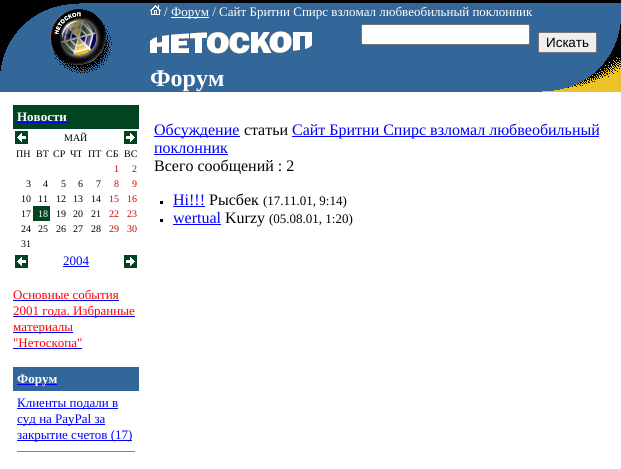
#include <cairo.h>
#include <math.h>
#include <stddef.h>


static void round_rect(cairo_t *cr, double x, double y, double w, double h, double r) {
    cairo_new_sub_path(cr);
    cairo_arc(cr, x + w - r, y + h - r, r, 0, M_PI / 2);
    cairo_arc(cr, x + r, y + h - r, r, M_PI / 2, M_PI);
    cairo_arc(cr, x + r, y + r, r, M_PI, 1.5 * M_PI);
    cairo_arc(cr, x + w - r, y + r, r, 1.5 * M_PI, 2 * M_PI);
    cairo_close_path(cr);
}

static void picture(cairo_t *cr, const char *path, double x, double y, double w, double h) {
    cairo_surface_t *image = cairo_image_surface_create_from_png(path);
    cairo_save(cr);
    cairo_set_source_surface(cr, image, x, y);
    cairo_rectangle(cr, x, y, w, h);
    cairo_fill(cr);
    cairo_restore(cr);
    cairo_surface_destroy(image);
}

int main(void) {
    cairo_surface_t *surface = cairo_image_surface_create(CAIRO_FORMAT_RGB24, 621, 469);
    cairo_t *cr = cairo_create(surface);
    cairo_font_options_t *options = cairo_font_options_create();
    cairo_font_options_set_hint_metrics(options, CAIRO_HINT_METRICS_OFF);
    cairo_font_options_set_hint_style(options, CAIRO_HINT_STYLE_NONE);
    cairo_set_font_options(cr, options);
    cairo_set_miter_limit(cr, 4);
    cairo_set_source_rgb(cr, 1, 1, 1);
    cairo_paint(cr);
    cairo_set_source_rgb(cr, 0, 0, 0);
    cairo_rectangle(cr, 0, 0, 621, 3);
    cairo_fill(cr);
    cairo_set_source_rgb(cr, 0.2, 0.4, 0.6);
    cairo_rectangle(cr, 0, 3, 621, 89);
    cairo_fill(cr);
    picture(cr, "img1.png", 0, 3, 112, 70);
    picture(cr, "img2.png", 150, 5, 11, 10);
    cairo_select_font_face(cr, "Liberation Serif", CAIRO_FONT_SLANT_NORMAL, CAIRO_FONT_WEIGHT_NORMAL);
    cairo_set_font_size(cr, 13);
    cairo_set_source_rgb(cr, 1, 1, 1);
    cairo_move_to(cr, 164, 16);
    cairo_show_text(cr, "/");
    cairo_rectangle(cr, 171, 17, 38, 1);
    cairo_fill(cr);
    cairo_move_to(cr, 171, 16);
    cairo_show_text(cr, "Форум / Сайт Бритни Спирс взломал любвеобильный поклонник");
    picture(cr, "img3.png", 150, 31, 162, 23);
    round_rect(cr, 361.5, 24.5, 168, 20, 1.5);
    cairo_fill_preserve(cr);
    cairo_set_source_rgb(cr, 0.463, 0.463, 0.463);
    cairo_set_line_width(cr, 1);
    cairo_stroke(cr);
    cairo_set_source_rgb(cr, 0.937, 0.937, 0.937);
    round_rect(cr, 538.5, 32.5, 58, 20, 1.5);
    cairo_fill_preserve(cr);
    cairo_set_source_rgb(cr, 0.463, 0.463, 0.463);
    cairo_stroke(cr);
    cairo_select_font_face(cr, "Liberation Sans", CAIRO_FONT_SLANT_NORMAL, CAIRO_FONT_WEIGHT_NORMAL);
    cairo_set_font_size(cr, 13.5);
    cairo_set_source_rgb(cr, 0, 0, 0);
    cairo_move_to(cr, 546, 47);
    cairo_show_text(cr, "Искать");
    cairo_select_font_face(cr, "Liberation Serif", CAIRO_FONT_SLANT_NORMAL, CAIRO_FONT_WEIGHT_BOLD);
    cairo_set_font_size(cr, 24);
    cairo_set_source_rgb(cr, 1, 1, 1);
    cairo_move_to(cr, 150, 86);
    cairo_show_text(cr, "Форум");
    picture(cr, "img4.png", 542, 67, 59, 25);
    picture(cr, "img5.png", 601, 24, 20, 68);
    cairo_set_source_rgb(cr, 0, 0.271, 0.125);
    cairo_rectangle(cr, 13, 105, 126, 24);
    cairo_fill(cr);
    cairo_set_font_size(cr, 13);
    cairo_set_source_rgb(cr, 1, 1, 1);
    cairo_move_to(cr, 17, 121);
    cairo_show_text(cr, "Новости");
    cairo_set_source_rgb(cr, 0, 0, 1);
    cairo_rectangle(cr, 17, 122, 50, 1);
    cairo_fill(cr);
    picture(cr, "img6.png", 15, 131, 13, 13);
    cairo_select_font_face(cr, "Liberation Serif", CAIRO_FONT_SLANT_NORMAL, CAIRO_FONT_WEIGHT_NORMAL);
    cairo_set_font_size(cr, 10);
    cairo_set_source_rgb(cr, 0, 0, 0);
    cairo_move_to(cr, 64, 141);
    cairo_show_text(cr, "МАЙ");
    picture(cr, "img7.png", 124, 131, 13, 13);
    cairo_move_to(cr, 16, 157);
    cairo_show_text(cr, "ПН");
    cairo_move_to(cr, 36, 157);
    cairo_show_text(cr, "ВТ");
    cairo_move_to(cr, 53, 157);
    cairo_show_text(cr, "СР");
    cairo_move_to(cr, 70, 157);
    cairo_show_text(cr, "ЧТ");
    cairo_move_to(cr, 88, 157);
    cairo_show_text(cr, "ПТ");
    cairo_move_to(cr, 106, 157);
    cairo_show_text(cr, "СБ");
    cairo_move_to(cr, 124, 157);
    cairo_show_text(cr, "ВС");
    cairo_set_source_rgb(cr, 0.8, 0, 0);
    cairo_move_to(cr, 114, 172);
    cairo_show_text(cr, "1");
    cairo_move_to(cr, 132, 172);
    cairo_show_text(cr, "2");
    cairo_set_source_rgb(cr, 0, 0, 0);
    cairo_move_to(cr, 26, 187);
    cairo_show_text(cr, "3");
    cairo_move_to(cr, 43, 187);
    cairo_show_text(cr, "4");
    cairo_move_to(cr, 61, 187);
    cairo_show_text(cr, "5");
    cairo_move_to(cr, 78, 187);
    cairo_show_text(cr, "6");
    cairo_move_to(cr, 96, 187);
    cairo_show_text(cr, "7");
    cairo_set_source_rgb(cr, 0.8, 0, 0);
    cairo_move_to(cr, 114, 187);
    cairo_show_text(cr, "8");
    cairo_move_to(cr, 132, 187);
    cairo_show_text(cr, "9");
    cairo_set_source_rgb(cr, 0, 0, 0);
    cairo_move_to(cr, 21, 202);
    cairo_show_text(cr, "10");
    cairo_move_to(cr, 38, 202);
    cairo_show_text(cr, "11");
    cairo_move_to(cr, 56, 202);
    cairo_show_text(cr, "12");
    cairo_move_to(cr, 73, 202);
    cairo_show_text(cr, "13");
    cairo_move_to(cr, 91, 202);
    cairo_show_text(cr, "14");
    cairo_set_source_rgb(cr, 0.8, 0, 0);
    cairo_move_to(cr, 109, 202);
    cairo_show_text(cr, "15");
    cairo_move_to(cr, 127, 202);
    cairo_show_text(cr, "16");
    cairo_set_source_rgb(cr, 0, 0, 0);
    cairo_move_to(cr, 21, 217);
    cairo_show_text(cr, "17");
    cairo_set_source_rgb(cr, 0, 0.271, 0.125);
    cairo_rectangle(cr, 33, 206, 17, 15);
    cairo_fill(cr);
    cairo_set_source_rgb(cr, 1, 1, 1);
    cairo_move_to(cr, 38, 217);
    cairo_show_text(cr, "18");
    cairo_set_source_rgb(cr, 0, 0, 0);
    cairo_move_to(cr, 56, 217);
    cairo_show_text(cr, "19");
    cairo_move_to(cr, 73, 217);
    cairo_show_text(cr, "20");
    cairo_move_to(cr, 91, 217);
    cairo_show_text(cr, "21");
    cairo_set_source_rgb(cr, 0.8, 0, 0);
    cairo_move_to(cr, 109, 217);
    cairo_show_text(cr, "22");
    cairo_move_to(cr, 127, 217);
    cairo_show_text(cr, "23");
    cairo_set_source_rgb(cr, 0, 0, 0);
    cairo_move_to(cr, 21, 232);
    cairo_show_text(cr, "24");
    cairo_move_to(cr, 38, 232);
    cairo_show_text(cr, "25");
    cairo_move_to(cr, 56, 232);
    cairo_show_text(cr, "26");
    cairo_move_to(cr, 73, 232);
    cairo_show_text(cr, "27");
    cairo_move_to(cr, 91, 232);
    cairo_show_text(cr, "28");
    cairo_set_source_rgb(cr, 0.8, 0, 0);
    cairo_move_to(cr, 109, 232);
    cairo_show_text(cr, "29");
    cairo_move_to(cr, 127, 232);
    cairo_show_text(cr, "30");
    cairo_set_source_rgb(cr, 0, 0, 0);
    cairo_move_to(cr, 21, 247);
    cairo_show_text(cr, "31");
    picture(cr, "img6.png", 15, 255, 13, 13);
    cairo_set_font_size(cr, 13);
    cairo_set_source_rgb(cr, 0, 0, 1);
    cairo_move_to(cr, 63, 265);
    cairo_show_text(cr, "2004");
    cairo_rectangle(cr, 63, 266, 26, 1);
    cairo_fill(cr);
    picture(cr, "img7.png", 124, 255, 13, 13);
    cairo_set_source_rgb(cr, 1, 0, 0);
    cairo_move_to(cr, 13, 299);
    cairo_show_text(cr, "Основные события");
    cairo_set_source_rgb(cr, 0, 0, 1);
    cairo_rectangle(cr, 13, 300, 106, 1);
    cairo_fill(cr);
    cairo_rectangle(cr, 13, 316, 122, 1);
    cairo_fill(cr);
    cairo_set_source_rgb(cr, 1, 0, 0);
    cairo_move_to(cr, 13, 315);
    cairo_show_text(cr, "2001 года. Избранные");
    cairo_set_source_rgb(cr, 0, 0, 1);
    cairo_rectangle(cr, 13, 332, 60, 1);
    cairo_fill(cr);
    cairo_set_source_rgb(cr, 1, 0, 0);
    cairo_move_to(cr, 13, 331);
    cairo_show_text(cr, "материалы");
    cairo_move_to(cr, 13, 347);
    cairo_show_text(cr, "\"Нетоскопа\"");
    cairo_set_source_rgb(cr, 0, 0, 1);
    cairo_rectangle(cr, 13, 348, 69, 1);
    cairo_fill(cr);
    cairo_set_source_rgb(cr, 0.2, 0.4, 0.6);
    cairo_rectangle(cr, 13, 367, 126, 24);
    cairo_fill(cr);
    cairo_set_source_rgb(cr, 0, 0, 1);
    cairo_rectangle(cr, 17, 384, 40, 1);
    cairo_fill(cr);
    cairo_select_font_face(cr, "Liberation Serif", CAIRO_FONT_SLANT_NORMAL, CAIRO_FONT_WEIGHT_BOLD);
    cairo_set_source_rgb(cr, 1, 1, 1);
    cairo_move_to(cr, 17, 383);
    cairo_show_text(cr, "Форум");
    cairo_set_source_rgb(cr, 0, 0, 1);
    cairo_rectangle(cr, 17, 408, 101, 1);
    cairo_fill(cr);
    cairo_select_font_face(cr, "Liberation Serif", CAIRO_FONT_SLANT_NORMAL, CAIRO_FONT_WEIGHT_NORMAL);
    cairo_move_to(cr, 17, 407);
    cairo_show_text(cr, "Клиенты подали в");
    cairo_rectangle(cr, 17, 424, 88, 1);
    cairo_fill(cr);
    cairo_move_to(cr, 17, 423);
    cairo_show_text(cr, "суд на PayPal за");
    cairo_rectangle(cr, 17, 440, 115, 1);
    cairo_fill(cr);
    cairo_move_to(cr, 17, 439);
    cairo_show_text(cr, "закрытие счетов (17)");
    cairo_set_source_rgb(cr, 0.502, 0.502, 0.502);
    cairo_rectangle(cr, 17, 451, 118, 1);
    cairo_fill(cr);
    cairo_set_source_rgb(cr, 0, 0, 1);
    cairo_rectangle(cr, 154, 136, 86, 1);
    cairo_fill(cr);
    cairo_set_font_size(cr, 16);
    cairo_move_to(cr, 154, 135);
    cairo_show_text(cr, "Обсуждение");
    cairo_set_source_rgb(cr, 0, 0, 0);
    cairo_move_to(cr, 244, 135);
    cairo_show_text(cr, "статьи");
    cairo_set_source_rgb(cr, 0, 0, 1);
    cairo_rectangle(cr, 292, 136, 307, 1);
    cairo_fill(cr);
    cairo_move_to(cr, 292, 135);
    cairo_show_text(cr, "Сайт Бритни Спирс взломал любвеобильный");
    cairo_move_to(cr, 154, 153);
    cairo_show_text(cr, "поклонник");
    cairo_rectangle(cr, 154, 154, 74, 1);
    cairo_fill(cr);
    cairo_set_source_rgb(cr, 0, 0, 0);
    cairo_move_to(cr, 154, 171);
    cairo_show_text(cr, "Всего сообщений : 2");
    cairo_rectangle(cr, 160, 201, 3, 3);
    cairo_fill(cr);
    cairo_set_source_rgb(cr, 0, 0, 1);
    cairo_move_to(cr, 173, 205);
    cairo_show_text(cr, "Hi!!!");
    cairo_rectangle(cr, 173, 206, 32, 1);
    cairo_fill(cr);
    cairo_set_source_rgb(cr, 0, 0, 0);
    cairo_move_to(cr, 209, 205);
    cairo_show_text(cr, "Рысбек");
    cairo_set_font_size(cr, 13);
    cairo_move_to(cr, 263, 205);
    cairo_show_text(cr, "(17.11.01, 9:14)");
    cairo_rectangle(cr, 160, 219, 3, 3);
    cairo_fill(cr);
    cairo_set_font_size(cr, 16);
    cairo_set_source_rgb(cr, 0, 0, 1);
    cairo_move_to(cr, 173, 223);
    cairo_show_text(cr, "wertual");
    cairo_rectangle(cr, 173, 224, 48, 1);
    cairo_fill(cr);
    cairo_set_source_rgb(cr, 0, 0, 0);
    cairo_move_to(cr, 225, 223);
    cairo_show_text(cr, "Kurzy");
    cairo_set_font_size(cr, 13);
    cairo_move_to(cr, 269, 223);
    cairo_show_text(cr, "(05.08.01, 1:20)");
    cairo_surface_write_to_png(surface, "page.png");
    cairo_font_options_destroy(options);
    cairo_destroy(cr);
    cairo_surface_destroy(surface);
    return 0;
}
